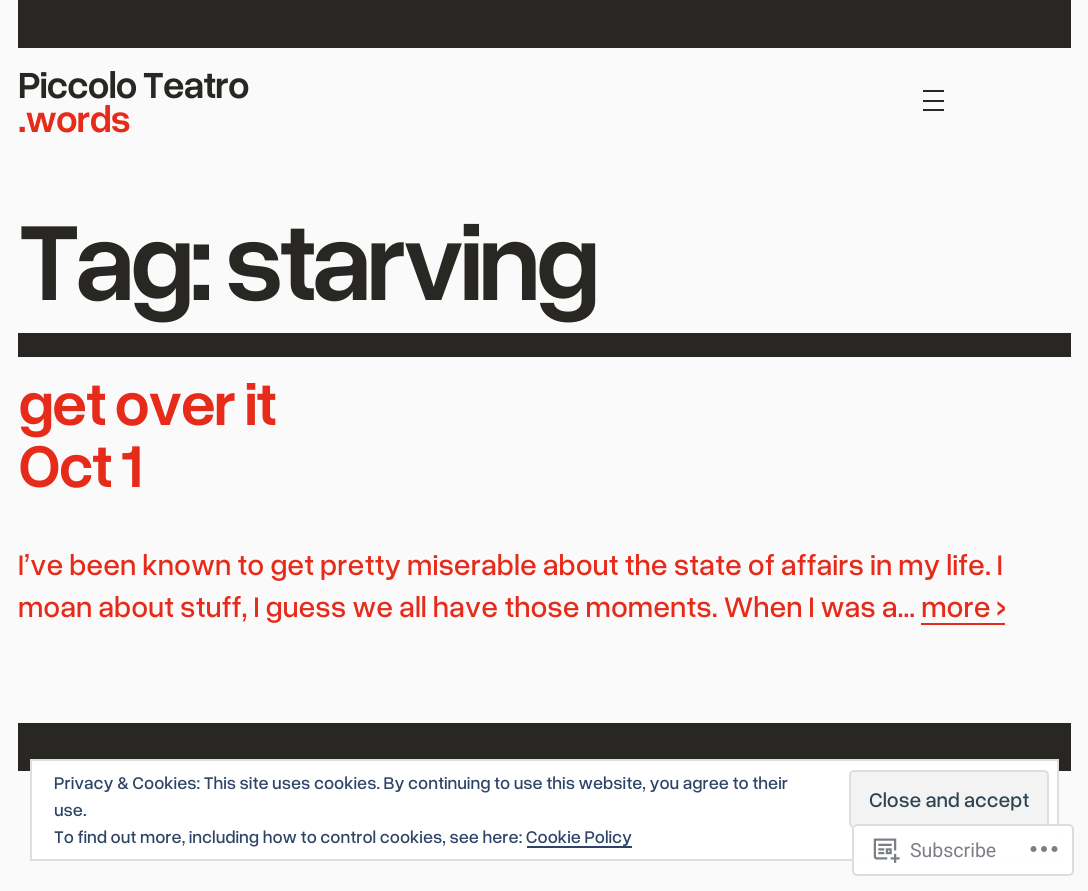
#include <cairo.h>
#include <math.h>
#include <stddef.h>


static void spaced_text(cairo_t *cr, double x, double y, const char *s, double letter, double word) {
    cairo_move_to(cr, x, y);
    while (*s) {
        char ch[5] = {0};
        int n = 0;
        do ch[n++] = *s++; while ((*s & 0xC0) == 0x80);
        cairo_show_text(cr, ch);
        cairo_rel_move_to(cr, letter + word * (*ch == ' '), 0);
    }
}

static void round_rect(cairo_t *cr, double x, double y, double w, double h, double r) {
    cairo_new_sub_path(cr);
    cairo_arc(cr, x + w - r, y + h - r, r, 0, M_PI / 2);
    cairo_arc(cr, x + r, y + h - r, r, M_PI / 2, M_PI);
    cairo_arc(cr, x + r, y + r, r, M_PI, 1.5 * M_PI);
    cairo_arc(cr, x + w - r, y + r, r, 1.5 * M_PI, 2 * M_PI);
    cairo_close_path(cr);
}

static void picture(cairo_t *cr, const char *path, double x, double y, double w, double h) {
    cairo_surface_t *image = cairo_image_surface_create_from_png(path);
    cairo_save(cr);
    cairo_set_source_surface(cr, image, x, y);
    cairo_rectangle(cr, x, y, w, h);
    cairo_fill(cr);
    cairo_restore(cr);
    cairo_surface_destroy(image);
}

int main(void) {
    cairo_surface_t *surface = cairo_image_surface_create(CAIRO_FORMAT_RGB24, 1088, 891);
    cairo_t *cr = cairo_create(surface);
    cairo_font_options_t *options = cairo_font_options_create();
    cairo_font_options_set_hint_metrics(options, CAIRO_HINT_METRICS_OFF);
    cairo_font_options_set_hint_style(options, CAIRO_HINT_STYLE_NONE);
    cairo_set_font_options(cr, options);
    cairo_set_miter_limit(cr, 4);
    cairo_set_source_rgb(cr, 0.98, 0.98, 0.98);
    cairo_paint(cr);
    cairo_set_source_rgb(cr, 0.161, 0.153, 0.141);
    cairo_rectangle(cr, 18, 0, 1053, 48);
    cairo_fill(cr);
    cairo_select_font_face(cr, "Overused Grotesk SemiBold", CAIRO_FONT_SLANT_NORMAL, CAIRO_FONT_WEIGHT_NORMAL);
    cairo_set_font_size(cr, 38.5);
    spaced_text(cr, 18, 98, "Piccolo Teatro", -1.25, 0);
    cairo_set_source_rgb(cr, 0.902, 0.169, 0.102);
    spaced_text(cr, 18, 132, ".words", -1.25, 0);
    cairo_set_source_rgb(cr, 0.161, 0.153, 0.141);
    cairo_rectangle(cr, 923, 90, 21, 2);
    cairo_fill(cr);
    cairo_rectangle(cr, 923, 100, 21, 2);
    cairo_fill(cr);
    cairo_rectangle(cr, 923, 109, 21, 2);
    cairo_fill(cr);
    cairo_set_font_size(cr, 113.25);
    spaced_text(cr, 18, 300, "Tag: starving", -6, 0);
    cairo_rectangle(cr, 18, 333, 1053, 24);
    cairo_fill(cr);
    cairo_set_font_size(cr, 62.5);
    cairo_set_source_rgb(cr, 0.902, 0.169, 0.102);
    spaced_text(cr, 18, 425, "get over it", -2.4, 0);
    spaced_text(cr, 18, 487, "Oct 1", -2.4, 0);
    cairo_select_font_face(cr, "Overused Grotesk Medium", CAIRO_FONT_SLANT_NORMAL, CAIRO_FONT_WEIGHT_NORMAL);
    cairo_set_font_size(cr, 30);
    cairo_move_to(cr, 18, 575);
    cairo_show_text(cr, "I’ve been known to get pretty miserable about the state of affairs in my life. I");
    cairo_move_to(cr, 18, 617);
    cairo_show_text(cr, "moan about stuff, I guess we all have those moments. When I was a… more ›");
    cairo_rectangle(cr, 921, 623, 84, 2);
    cairo_fill(cr);
    cairo_set_source_rgb(cr, 0.161, 0.153, 0.141);
    cairo_rectangle(cr, 18, 723, 1053, 48);
    cairo_fill(cr);
    cairo_set_source_rgb(cr, 1, 1, 1);
    cairo_rectangle(cr, 31, 760, 1027, 100);
    cairo_fill_preserve(cr);
    cairo_set_source_rgb(cr, 0.871, 0.871, 0.871);
    cairo_stroke(cr);
    cairo_set_font_size(cr, 18);
    cairo_set_source_rgb(cr, 0.18, 0.267, 0.404);
    cairo_move_to(cr, 54, 789);
    cairo_show_text(cr, "Privacy & Cookies: This site uses cookies. By continuing to use this website, you agree to their");
    cairo_move_to(cr, 54, 816);
    cairo_show_text(cr, "use.");
    cairo_set_source_rgb(cr, 0.953, 0.953, 0.953);
    round_rect(cr, 850, 771, 198, 56, 4);
    cairo_fill_preserve(cr);
    cairo_set_source_rgb(cr, 0.871, 0.871, 0.871);
    cairo_stroke(cr);
    cairo_set_font_size(cr, 21);
    cairo_set_source_rgb(cr, 0.18, 0.267, 0.325);
    cairo_move_to(cr, 869, 807);
    cairo_show_text(cr, "Close and accept");
    cairo_set_font_size(cr, 18);
    cairo_set_source_rgb(cr, 0.18, 0.267, 0.404);
    cairo_move_to(cr, 54, 843);
    cairo_show_text(cr, "To find out more, including how to control cookies, see here: Cookie Policy");
    cairo_rectangle(cr, 527, 846, 105, 2);
    cairo_fill(cr);
    cairo_set_source_rgba(cr, 1, 1, 1, 0.98);
    round_rect(cr, 852, 824, 222, 52, 5);
    cairo_fill(cr);
    round_rect(cr, 853, 825, 220, 50, 4);
    cairo_set_source_rgba(cr, 0.863, 0.863, 0.871, 0.98);
    cairo_stroke(cr);
    picture(cr, "img1.png", 873, 838, 27, 25);
    cairo_select_font_face(cr, "Roboto", CAIRO_FONT_SLANT_NORMAL, CAIRO_FONT_WEIGHT_NORMAL);
    cairo_set_font_size(cr, 19.5);
    cairo_set_source_rgb(cr, 0.482, 0.498, 0.522);
    cairo_move_to(cr, 910, 857);
    cairo_show_text(cr, "Subscribe");
    picture(cr, "img2.png", 1030, 846, 28, 6);
    cairo_surface_write_to_png(surface, "page.png");
    cairo_font_options_destroy(options);
    cairo_destroy(cr);
    cairo_surface_destroy(surface);
    return 0;
}
